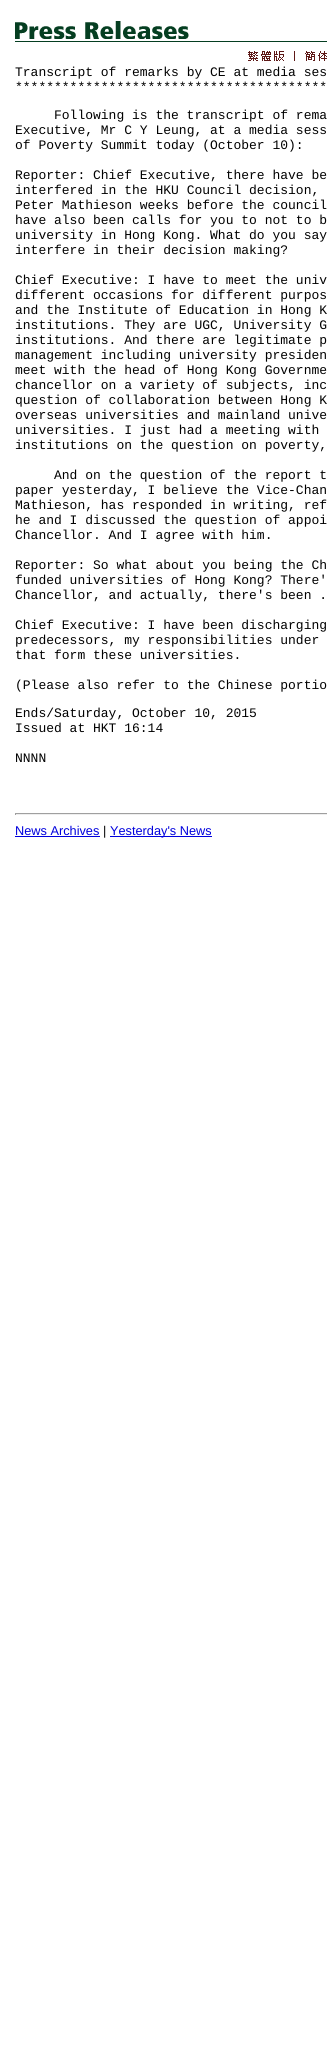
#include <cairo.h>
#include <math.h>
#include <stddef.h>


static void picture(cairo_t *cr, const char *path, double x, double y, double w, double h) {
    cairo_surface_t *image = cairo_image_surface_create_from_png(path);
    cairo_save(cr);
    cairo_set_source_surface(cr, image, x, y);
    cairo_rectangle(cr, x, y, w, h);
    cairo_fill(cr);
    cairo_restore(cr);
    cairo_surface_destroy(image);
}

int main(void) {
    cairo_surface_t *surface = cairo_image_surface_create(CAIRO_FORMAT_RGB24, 327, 2071);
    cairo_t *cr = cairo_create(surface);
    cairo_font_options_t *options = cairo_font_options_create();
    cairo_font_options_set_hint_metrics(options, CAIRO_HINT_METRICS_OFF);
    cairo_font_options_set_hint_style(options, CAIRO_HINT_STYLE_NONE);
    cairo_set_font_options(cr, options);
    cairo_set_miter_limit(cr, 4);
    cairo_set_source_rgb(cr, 1, 1, 1);
    cairo_paint(cr);
    cairo_set_source_rgb(cr, 0.02, 0.243, 0.129);
    cairo_rectangle(cr, 15, 41, 312, 1);
    cairo_fill(cr);
    picture(cr, "img1.png", 15, 21, 174, 18);
    picture(cr, "img2.png", 248, 51, 47, 10);
    picture(cr, "img3.png", 305, 51, 22, 10);
    cairo_select_font_face(cr, "Liberation Mono", CAIRO_FONT_SLANT_NORMAL, CAIRO_FONT_WEIGHT_NORMAL);
    cairo_set_font_size(cr, 13);
    cairo_set_source_rgb(cr, 0, 0, 0);
    cairo_move_to(cr, 15, 76);
    cairo_show_text(cr, "Transcript of remarks by CE at media ses");
    cairo_move_to(cr, 15, 91);
    cairo_show_text(cr, "****************************************");
    cairo_move_to(cr, 54, 119);
    cairo_show_text(cr, "Following is the transcript of rema");
    cairo_move_to(cr, 15, 134);
    cairo_show_text(cr, "Executive, Mr C Y Leung, at a media sess");
    cairo_move_to(cr, 15, 149);
    cairo_show_text(cr, "of Poverty Summit today (October 10):");
    cairo_move_to(cr, 15, 179);
    cairo_show_text(cr, "Reporter: Chief Executive, there have be");
    cairo_move_to(cr, 15, 194);
    cairo_show_text(cr, "interfered in the HKU Council decision,");
    cairo_move_to(cr, 15, 209);
    cairo_show_text(cr, "Peter Mathieson weeks before the council");
    cairo_move_to(cr, 15, 224);
    cairo_show_text(cr, "have also been calls for you to not to b");
    cairo_move_to(cr, 15, 239);
    cairo_show_text(cr, "university in Hong Kong. What do you say");
    cairo_move_to(cr, 15, 254);
    cairo_show_text(cr, "interfere in their decision making?");
    cairo_move_to(cr, 15, 284);
    cairo_show_text(cr, "Chief Executive: I have to meet the univ");
    cairo_move_to(cr, 15, 299);
    cairo_show_text(cr, "different occasions for different purpos");
    cairo_move_to(cr, 15, 314);
    cairo_show_text(cr, "and the Institute of Education in Hong K");
    cairo_move_to(cr, 15, 329);
    cairo_show_text(cr, "institutions. They are UGC, University G");
    cairo_move_to(cr, 15, 344);
    cairo_show_text(cr, "institutions. And there are legitimate p");
    cairo_move_to(cr, 15, 359);
    cairo_show_text(cr, "management including university presiden");
    cairo_move_to(cr, 15, 374);
    cairo_show_text(cr, "meet with the head of Hong Kong Governme");
    cairo_move_to(cr, 15, 389);
    cairo_show_text(cr, "chancellor on a variety of subjects, inc");
    cairo_move_to(cr, 15, 404);
    cairo_show_text(cr, "question of collaboration between Hong K");
    cairo_move_to(cr, 15, 419);
    cairo_show_text(cr, "overseas universities and mainland unive");
    cairo_move_to(cr, 15, 434);
    cairo_show_text(cr, "universities. I just had a meeting with");
    cairo_move_to(cr, 15, 449);
    cairo_show_text(cr, "institutions on the question on poverty,");
    cairo_move_to(cr, 54, 479);
    cairo_show_text(cr, "And on the question of the report t");
    cairo_move_to(cr, 15, 494);
    cairo_show_text(cr, "paper yesterday, I believe the Vice-Chan");
    cairo_move_to(cr, 15, 509);
    cairo_show_text(cr, "Mathieson, has responded in writing, ref");
    cairo_move_to(cr, 15, 524);
    cairo_show_text(cr, "he and I discussed the question of appoi");
    cairo_move_to(cr, 15, 539);
    cairo_show_text(cr, "Chancellor. And I agree with him.");
    cairo_move_to(cr, 15, 569);
    cairo_show_text(cr, "Reporter: So what about you being the Ch");
    cairo_move_to(cr, 15, 584);
    cairo_show_text(cr, "funded universities of Hong Kong? There'");
    cairo_move_to(cr, 15, 599);
    cairo_show_text(cr, "Chancellor, and actually, there's been .");
    cairo_move_to(cr, 15, 629);
    cairo_show_text(cr, "Chief Executive: I have been discharging");
    cairo_move_to(cr, 15, 644);
    cairo_show_text(cr, "predecessors, my responsibilities under");
    cairo_move_to(cr, 15, 659);
    cairo_show_text(cr, "that form these universities.");
    cairo_move_to(cr, 15, 689);
    cairo_show_text(cr, "(Please also refer to the Chinese portio");
    cairo_move_to(cr, 15, 717);
    cairo_show_text(cr, "Ends/Saturday, October 10, 2015");
    cairo_move_to(cr, 15, 732);
    cairo_show_text(cr, "Issued at HKT 16:14");
    cairo_move_to(cr, 15, 762);
    cairo_show_text(cr, "NNNN");
    cairo_set_source_rgb(cr, 0.624, 0.624, 0.624);
    cairo_rectangle(cr, 15, 813, 312, 1);
    cairo_fill(cr);
    cairo_set_source_rgb(cr, 0.933, 0.933, 0.933);
    cairo_rectangle(cr, 15, 814, 312, 1);
    cairo_fill(cr);
    cairo_set_source_rgb(cr, 0.624, 0.624, 0.624);
    cairo_rectangle(cr, 15, 813, 1, 2);
    cairo_fill(cr);
    cairo_select_font_face(cr, "Liberation Sans", CAIRO_FONT_SLANT_NORMAL, CAIRO_FONT_WEIGHT_NORMAL);
    cairo_set_font_size(cr, 12.75);
    cairo_set_source_rgb(cr, 0, 0, 0.867);
    cairo_move_to(cr, 15, 835);
    cairo_show_text(cr, "News Archives");
    cairo_rectangle(cr, 15, 836, 85, 1);
    cairo_fill(cr);
    cairo_set_source_rgb(cr, 0, 0, 0);
    cairo_move_to(cr, 103, 835);
    cairo_show_text(cr, "|");
    cairo_set_source_rgb(cr, 0, 0, 0.867);
    cairo_rectangle(cr, 110, 836, 102, 1);
    cairo_fill(cr);
    cairo_move_to(cr, 110, 835);
    cairo_show_text(cr, "Yesterday's News");
    cairo_surface_write_to_png(surface, "page.png");
    cairo_font_options_destroy(options);
    cairo_destroy(cr);
    cairo_surface_destroy(surface);
    return 0;
}
